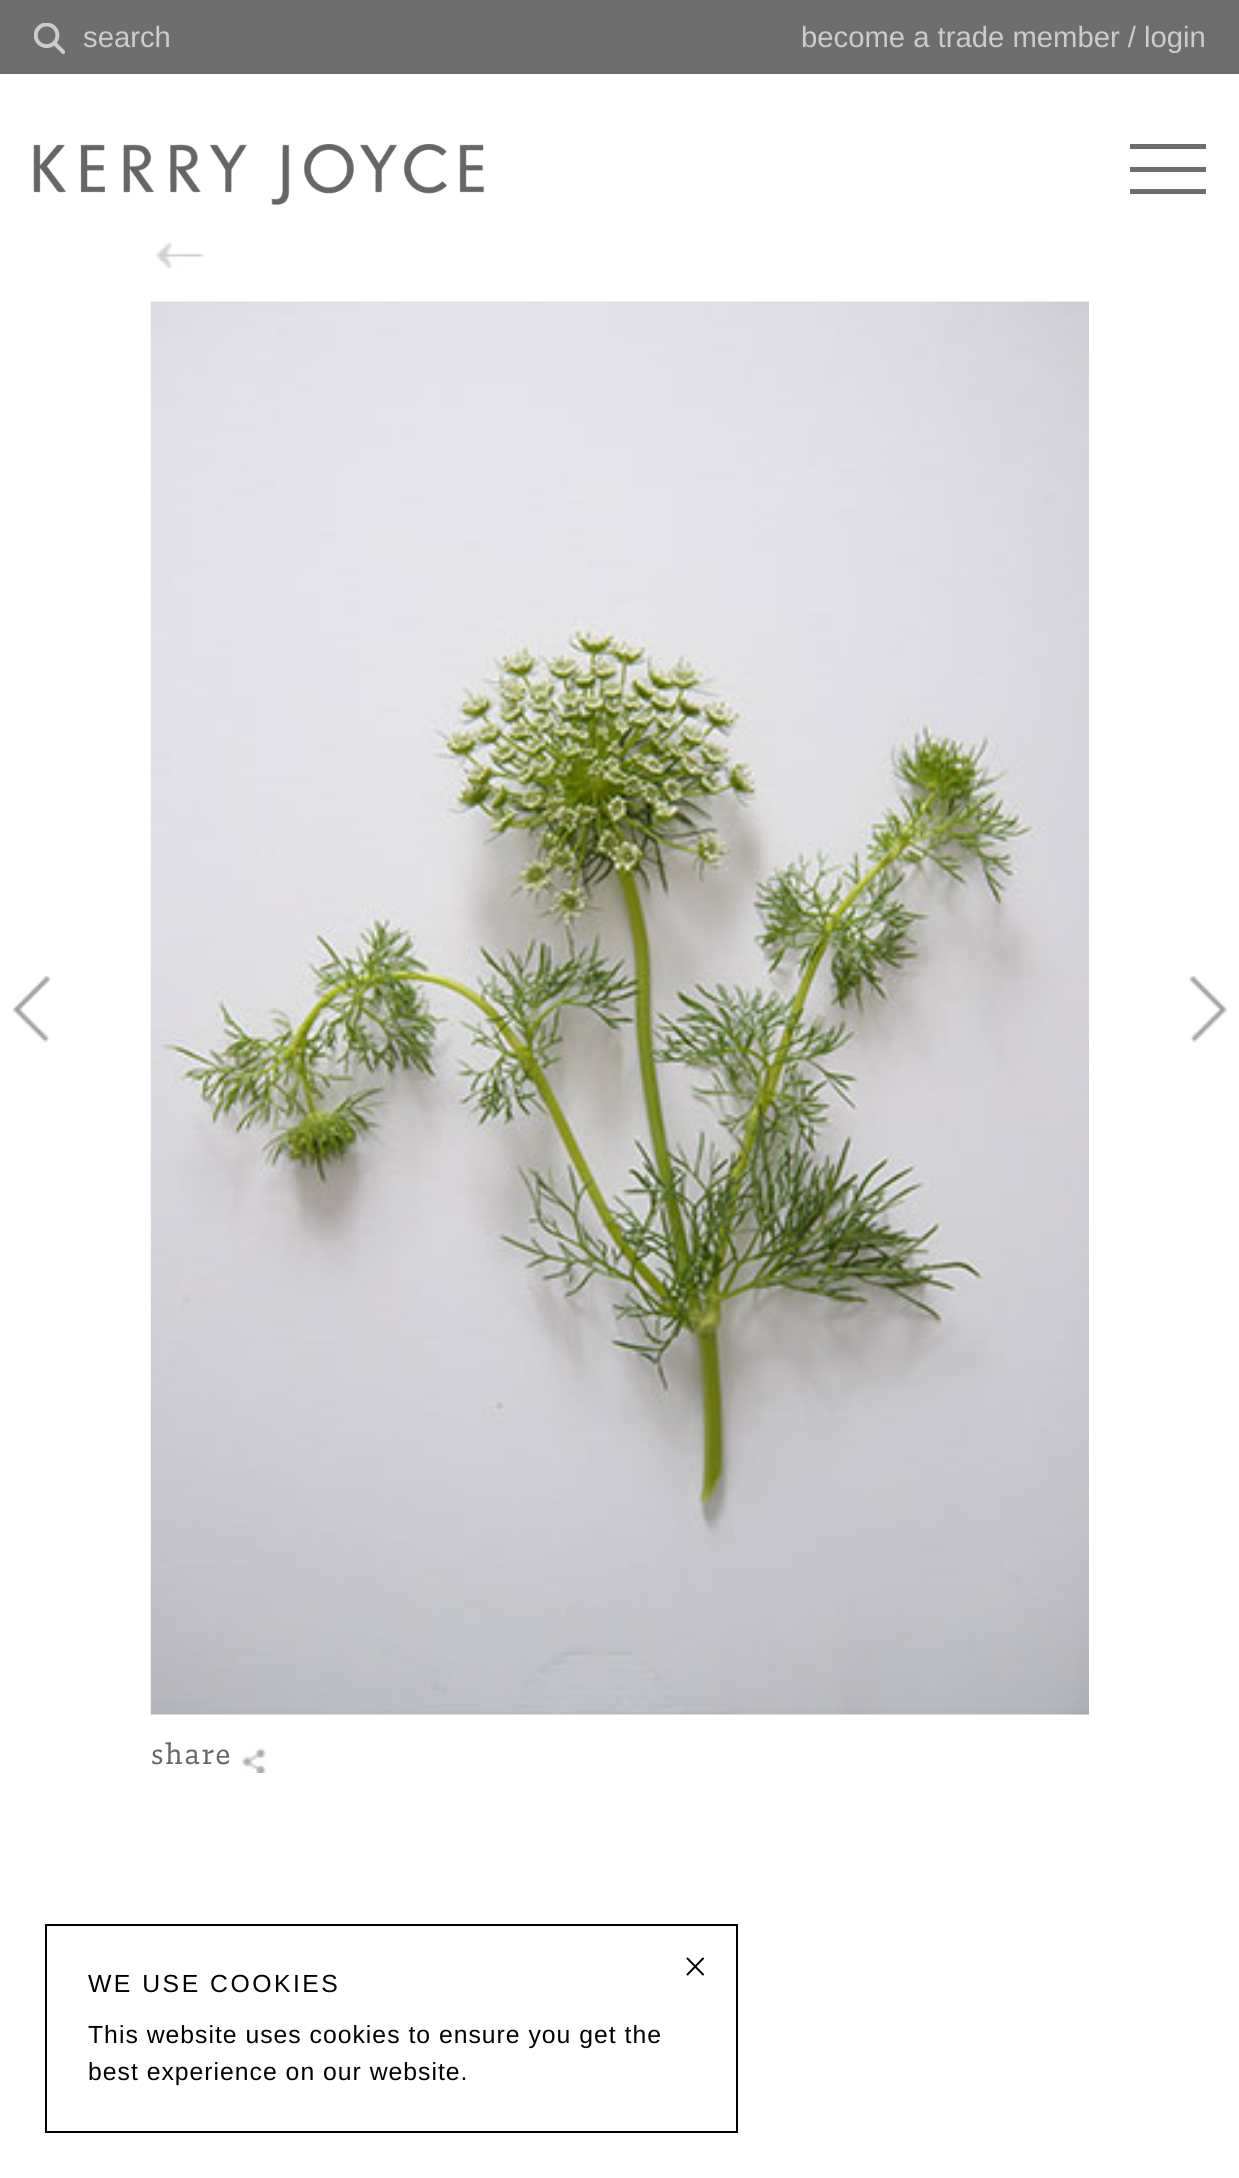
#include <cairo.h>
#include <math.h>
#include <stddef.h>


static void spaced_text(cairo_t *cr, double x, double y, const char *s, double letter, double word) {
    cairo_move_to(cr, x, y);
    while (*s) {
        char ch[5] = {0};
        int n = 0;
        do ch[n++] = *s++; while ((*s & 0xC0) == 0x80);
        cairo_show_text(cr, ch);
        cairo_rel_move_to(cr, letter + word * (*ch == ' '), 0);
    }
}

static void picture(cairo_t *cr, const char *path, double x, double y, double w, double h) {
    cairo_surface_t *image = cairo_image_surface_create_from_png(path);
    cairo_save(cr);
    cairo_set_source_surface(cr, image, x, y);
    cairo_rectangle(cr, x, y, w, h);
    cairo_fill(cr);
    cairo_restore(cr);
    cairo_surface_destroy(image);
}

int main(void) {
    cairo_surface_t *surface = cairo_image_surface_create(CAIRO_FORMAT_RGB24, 1239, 2178);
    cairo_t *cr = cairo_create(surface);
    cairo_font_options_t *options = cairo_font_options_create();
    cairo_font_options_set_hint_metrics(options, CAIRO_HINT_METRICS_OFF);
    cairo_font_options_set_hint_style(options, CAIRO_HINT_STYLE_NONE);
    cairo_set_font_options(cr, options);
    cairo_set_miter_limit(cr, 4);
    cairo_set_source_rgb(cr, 1, 1, 1);
    cairo_paint(cr);
    cairo_set_source_rgb(cr, 0.431, 0.431, 0.431);
    cairo_rectangle(cr, 0, 0, 1239, 74);
    cairo_fill(cr);
    picture(cr, "img1.png", 34, 23, 31, 31);
    cairo_select_font_face(cr, "Liberation Sans", CAIRO_FONT_SLANT_NORMAL, CAIRO_FONT_WEIGHT_NORMAL);
    cairo_set_font_size(cr, 29.25);
    cairo_set_source_rgb(cr, 0.8, 0.8, 0.8);
    cairo_move_to(cr, 83, 47);
    cairo_show_text(cr, "search");
    cairo_move_to(cr, 801, 47);
    cairo_show_text(cr, "become a trade member / login");
    picture(cr, "img2.png", 33, 144, 451, 61);
    cairo_set_source_rgb(cr, 0.431, 0.431, 0.431);
    cairo_rectangle(cr, 1130, 144, 76, 5);
    cairo_fill(cr);
    cairo_rectangle(cr, 1130, 167, 76, 5);
    cairo_fill(cr);
    cairo_rectangle(cr, 1130, 189, 76, 5);
    cairo_fill(cr);
    picture(cr, "img3.png", 155, 242, 50, 27);
    picture(cr, "img4.png", 13, 976, 38, 67);
    picture(cr, "img5.png", 1189, 975, 38, 68);
    picture(cr, "img6.png", 150, 301, 939, 1414);
    cairo_select_font_face(cr, "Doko", CAIRO_FONT_SLANT_NORMAL, CAIRO_FONT_WEIGHT_NORMAL);
    cairo_set_font_size(cr, 31.5);
    cairo_set_source_rgb(cr, 0.4, 0.4, 0.4);
    spaced_text(cr, 151, 1764, "share", 2, 0);
    picture(cr, "img7.png", 242, 1748, 24, 25);
    cairo_rectangle(cr, 46, 1925, 691, 207);
    cairo_set_source_rgb(cr, 0, 0, 0);
    cairo_stroke(cr);
    cairo_new_path(cr);
    cairo_move_to(cr, 687.5, 1974.5);
    cairo_line_to(cr, 703, 1958.5);
    cairo_move_to(cr, 687.5, 1958.5);
    cairo_line_to(cr, 703, 1974.5);
    cairo_set_line_cap(cr, CAIRO_LINE_CAP_ROUND);
    cairo_set_line_join(cr, CAIRO_LINE_JOIN_ROUND);
    cairo_stroke(cr);
    cairo_select_font_face(cr, "Liberation Sans", CAIRO_FONT_SLANT_NORMAL, CAIRO_FONT_WEIGHT_NORMAL);
    cairo_set_font_size(cr, 24.75);
    spaced_text(cr, 88, 1992, "WE USE COOKIES", 2.5, 0);
    spaced_text(cr, 88, 2043, "This website uses cookies to ensure you get the", 1, 0);
    spaced_text(cr, 88, 2080, "best experience on our website.", 1, 0);
    cairo_surface_write_to_png(surface, "page.png");
    cairo_font_options_destroy(options);
    cairo_destroy(cr);
    cairo_surface_destroy(surface);
    return 0;
}
